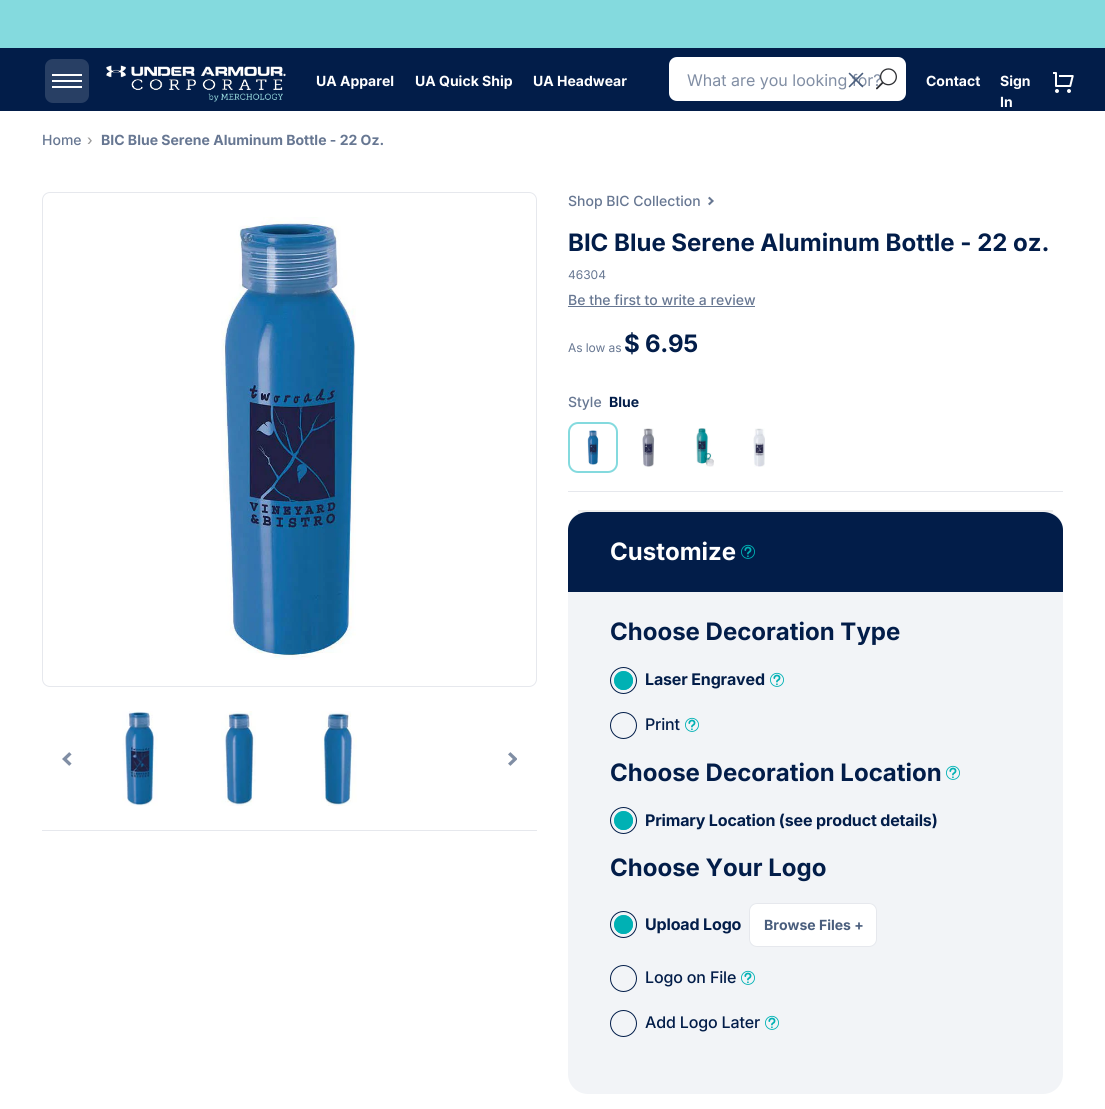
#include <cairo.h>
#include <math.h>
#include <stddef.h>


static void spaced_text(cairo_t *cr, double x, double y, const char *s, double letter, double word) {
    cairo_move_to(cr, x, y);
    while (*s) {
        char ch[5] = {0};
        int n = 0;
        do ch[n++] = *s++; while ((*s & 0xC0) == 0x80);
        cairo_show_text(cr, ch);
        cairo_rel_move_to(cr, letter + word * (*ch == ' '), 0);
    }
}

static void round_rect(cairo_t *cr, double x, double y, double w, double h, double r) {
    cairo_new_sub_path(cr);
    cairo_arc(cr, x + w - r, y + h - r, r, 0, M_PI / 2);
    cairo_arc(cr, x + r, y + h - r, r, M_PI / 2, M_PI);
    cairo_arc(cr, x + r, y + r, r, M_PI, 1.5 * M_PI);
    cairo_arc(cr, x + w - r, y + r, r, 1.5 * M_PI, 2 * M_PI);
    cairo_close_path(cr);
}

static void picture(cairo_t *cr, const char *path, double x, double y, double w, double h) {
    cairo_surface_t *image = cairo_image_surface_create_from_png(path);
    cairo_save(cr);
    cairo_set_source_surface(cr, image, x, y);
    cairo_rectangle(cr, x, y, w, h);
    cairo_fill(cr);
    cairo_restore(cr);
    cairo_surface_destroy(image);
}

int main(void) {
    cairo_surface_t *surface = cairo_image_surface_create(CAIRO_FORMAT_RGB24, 1105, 1109);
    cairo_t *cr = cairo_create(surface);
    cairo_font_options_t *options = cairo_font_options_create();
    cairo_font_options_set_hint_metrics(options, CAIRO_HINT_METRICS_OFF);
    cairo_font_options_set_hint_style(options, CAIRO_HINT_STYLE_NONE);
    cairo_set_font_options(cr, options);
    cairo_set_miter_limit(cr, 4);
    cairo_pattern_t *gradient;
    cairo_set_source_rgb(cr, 1, 1, 1);
    cairo_paint(cr);
    cairo_set_source_rgb(cr, 0.518, 0.855, 0.871);
    cairo_rectangle(cr, 0, 0, 1105, 48);
    cairo_fill(cr);
    cairo_set_source_rgb(cr, 0.008, 0.114, 0.286);
    cairo_rectangle(cr, 0, 48, 1105, 63);
    cairo_fill(cr);
    cairo_set_source_rgb(cr, 0.157, 0.247, 0.392);
    round_rect(cr, 45, 59, 44, 44, 8);
    cairo_fill(cr);
    cairo_set_source_rgb(cr, 1, 1, 1);
    cairo_rectangle(cr, 52, 74, 30, 2);
    cairo_fill(cr);
    cairo_rectangle(cr, 52, 80, 30, 2);
    cairo_fill(cr);
    cairo_rectangle(cr, 52, 86, 30, 2);
    cairo_fill(cr);
    picture(cr, "img1.png", 106, 65, 180, 37);
    cairo_select_font_face(cr, "Inter", CAIRO_FONT_SLANT_NORMAL, CAIRO_FONT_WEIGHT_BOLD);
    cairo_set_font_size(cr, 14);
    cairo_move_to(cr, 316, 86);
    cairo_show_text(cr, "UA Apparel");
    cairo_move_to(cr, 415, 86);
    cairo_show_text(cr, "UA Quick Ship");
    cairo_move_to(cr, 533, 86);
    cairo_show_text(cr, "UA Headwear");
    round_rect(cr, 669, 57, 237, 44, 8);
    cairo_fill(cr);
    cairo_select_font_face(cr, "Inter", CAIRO_FONT_SLANT_NORMAL, CAIRO_FONT_WEIGHT_NORMAL);
    cairo_set_font_size(cr, 16);
    cairo_set_source_rgb(cr, 0.506, 0.557, 0.643);
    cairo_move_to(cr, 687, 86);
    cairo_show_text(cr, "What are you looking for?");
    cairo_new_path(cr);
    cairo_move_to(cr, 849.5, 73.5);
    cairo_line_to(cr, 862.5, 86.5);
    cairo_move_to(cr, 849.5, 86.5);
    cairo_line_to(cr, 862.5, 73.5);
    cairo_set_source_rgb(cr, 0.29, 0.369, 0.49);
    cairo_set_line_width(cr, 1.6);
    cairo_set_line_cap(cr, CAIRO_LINE_CAP_ROUND);
    cairo_stroke(cr);
    picture(cr, "img2.png", 876, 68, 21, 22);
    cairo_select_font_face(cr, "Inter", CAIRO_FONT_SLANT_NORMAL, CAIRO_FONT_WEIGHT_BOLD);
    cairo_set_font_size(cr, 14);
    cairo_set_source_rgb(cr, 1, 1, 1);
    cairo_move_to(cr, 926, 86);
    cairo_show_text(cr, "Contact");
    cairo_move_to(cr, 1000, 86);
    cairo_show_text(cr, "Sign");
    cairo_move_to(cr, 1000, 107);
    cairo_show_text(cr, "In");
    picture(cr, "img3.png", 1053, 72, 21, 21);
    cairo_select_font_face(cr, "Inter Medium", CAIRO_FONT_SLANT_NORMAL, CAIRO_FONT_WEIGHT_NORMAL);
    cairo_set_source_rgb(cr, 0.404, 0.467, 0.573);
    cairo_move_to(cr, 42, 145);
    cairo_show_text(cr, "Home");
    cairo_set_source_rgb(cr, 0.604, 0.604, 0.604);
    cairo_move_to(cr, 87, 145);
    cairo_show_text(cr, "›");
    cairo_select_font_face(cr, "Inter", CAIRO_FONT_SLANT_NORMAL, CAIRO_FONT_WEIGHT_BOLD);
    cairo_set_source_rgb(cr, 0.404, 0.467, 0.573);
    cairo_move_to(cr, 101, 145);
    cairo_show_text(cr, "BIC Blue Serene Aluminum Bottle - 22 Oz.");
    round_rect(cr, 42.5, 192.5, 494, 494, 7.5);
    cairo_set_source_rgb(cr, 0.902, 0.91, 0.929);
    cairo_set_line_width(cr, 1);
    cairo_set_line_cap(cr, CAIRO_LINE_CAP_BUTT);
    cairo_stroke(cr);
    picture(cr, "img4.png", 221, 217, 135, 443);
    picture(cr, "img5.png", 62, 752, 10, 14);
    picture(cr, "img6.png", 122, 711, 36, 95);
    picture(cr, "img7.png", 221, 711, 35, 95);
    picture(cr, "img8.png", 321, 711, 36, 95);
    picture(cr, "img9.png", 508, 752, 9, 14);
    cairo_rectangle(cr, 42, 830, 495, 1);
    cairo_fill(cr);
    cairo_select_font_face(cr, "Inter Medium", CAIRO_FONT_SLANT_NORMAL, CAIRO_FONT_WEIGHT_NORMAL);
    cairo_set_source_rgb(cr, 0.404, 0.467, 0.573);
    cairo_move_to(cr, 568, 206);
    cairo_show_text(cr, "Shop BIC Collection");
    picture(cr, "img10.png", 708, 196, 6, 10);
    cairo_select_font_face(cr, "Inter", CAIRO_FONT_SLANT_NORMAL, CAIRO_FONT_WEIGHT_BOLD);
    cairo_set_font_size(cr, 24);
    cairo_set_source_rgb(cr, 0.008, 0.114, 0.286);
    cairo_move_to(cr, 568, 251);
    cairo_show_text(cr, "BIC Blue Serene Aluminum Bottle - 22 oz.");
    cairo_select_font_face(cr, "Inter", CAIRO_FONT_SLANT_NORMAL, CAIRO_FONT_WEIGHT_NORMAL);
    cairo_set_font_size(cr, 12);
    cairo_set_source_rgb(cr, 0.404, 0.467, 0.573);
    cairo_move_to(cr, 568, 279);
    cairo_show_text(cr, "46304");
    cairo_select_font_face(cr, "Inter Medium", CAIRO_FONT_SLANT_NORMAL, CAIRO_FONT_WEIGHT_NORMAL);
    cairo_set_font_size(cr, 14);
    cairo_move_to(cr, 568, 305);
    cairo_show_text(cr, "Be the first to write a review");
    cairo_rectangle(cr, 568, 306, 187, 1);
    cairo_fill(cr);
    cairo_select_font_face(cr, "Inter", CAIRO_FONT_SLANT_NORMAL, CAIRO_FONT_WEIGHT_NORMAL);
    cairo_set_font_size(cr, 12);
    spaced_text(cr, 568, 352, "As low as", -0.1, 0);
    cairo_select_font_face(cr, "Inter", CAIRO_FONT_SLANT_NORMAL, CAIRO_FONT_WEIGHT_BOLD);
    cairo_set_font_size(cr, 24);
    cairo_set_source_rgb(cr, 0.008, 0.114, 0.286);
    spaced_text(cr, 624, 352, "$ 6.95", -0.25, 0);
    cairo_select_font_face(cr, "Inter Medium", CAIRO_FONT_SLANT_NORMAL, CAIRO_FONT_WEIGHT_NORMAL);
    cairo_set_font_size(cr, 14);
    cairo_set_source_rgb(cr, 0.404, 0.467, 0.573);
    cairo_move_to(cr, 568, 407);
    cairo_show_text(cr, "Style");
    cairo_select_font_face(cr, "Inter", CAIRO_FONT_SLANT_NORMAL, CAIRO_FONT_WEIGHT_BOLD);
    cairo_set_source_rgb(cr, 0.008, 0.114, 0.286);
    cairo_move_to(cr, 609, 407);
    cairo_show_text(cr, "Blue");
    cairo_set_source_rgb(cr, 0.902, 0.91, 0.929);
    cairo_rectangle(cr, 568, 491, 495, 1);
    cairo_fill(cr);
    round_rect(cr, 569, 423, 48, 49, 9);
    cairo_set_source_rgb(cr, 0.518, 0.855, 0.871);
    cairo_set_line_width(cr, 2);
    cairo_stroke(cr);
    picture(cr, "img11.png", 587, 430, 13, 35);
    picture(cr, "img12.png", 642, 428, 13, 39);
    picture(cr, "img13.png", 696, 428, 18, 39);
    picture(cr, "img14.png", 753, 428, 12, 39);
    cairo_set_source_rgb(cr, 0.949, 0.957, 0.965);
    round_rect(cr, 568, 510, 495, 584, 20);
    cairo_fill(cr);
    cairo_set_source_rgb(cr, 0.933, 0.933, 0.933);
    cairo_rectangle(cr, 578, 510, 475, 2);
    cairo_fill(cr);
    cairo_set_source_rgb(cr, 0.008, 0.114, 0.286);
    cairo_new_path(cr);
    cairo_move_to(cr, 588, 512);
    cairo_curve_to(cr, 577, 512, 568, 520, 568, 530);
    cairo_line_to(cr, 568, 592);
    cairo_line_to(cr, 1063, 592);
    cairo_line_to(cr, 1063, 530);
    cairo_curve_to(cr, 1063, 520, 1054, 512, 1043, 512);
    cairo_close_path(cr);
    cairo_fill(cr);
    cairo_set_font_size(cr, 24);
    cairo_set_source_rgb(cr, 1, 1, 1);
    cairo_move_to(cr, 610, 560);
    cairo_show_text(cr, "Customize");
    picture(cr, "img15.png", 741, 544, 14, 15);
    cairo_set_source_rgb(cr, 0.008, 0.114, 0.286);
    cairo_move_to(cr, 610, 640);
    cairo_show_text(cr, "Choose Decoration Type");
    cairo_set_source_rgb(cr, 0, 0.694, 0.706);
    cairo_new_path(cr);
    cairo_arc(cr, 623.5, 680.5, 9.5, 0, 2 * M_PI);
    cairo_fill(cr);
    gradient = cairo_pattern_create_radial(624, 681, 0, 624, 681, 18);
    cairo_pattern_add_color_stop_rgba(gradient, 0, 0, 0.694, 0.706, 1);
    cairo_pattern_add_color_stop_rgba(gradient, 0.5, 0, 0.694, 0.706, 1);
    cairo_pattern_add_color_stop_rgba(gradient, 0.6, 0, 0.694, 0.706, 0);
    cairo_pattern_add_color_stop_rgba(gradient, 1, 0, 0, 0, 0);
    cairo_set_source(cr, gradient);
    cairo_pattern_destroy(gradient);
    cairo_arc(cr, 623.5, 680.5, 9.5, 0, 2 * M_PI);
    cairo_fill(cr);
    cairo_arc(cr, 623.5, 680.5, 13, 0, 2 * M_PI);
    cairo_set_source_rgb(cr, 0.008, 0.114, 0.286);
    cairo_set_line_width(cr, 1);
    cairo_stroke(cr);
    cairo_set_font_size(cr, 16);
    spaced_text(cr, 645, 685, "Laser Engraved", -0.15, 0);
    picture(cr, "img16.png", 770, 672, 14, 15);
    cairo_arc(cr, 623.5, 725.5, 13, 0, 2 * M_PI);
    cairo_stroke(cr);
    cairo_select_font_face(cr, "Inter Medium", CAIRO_FONT_SLANT_NORMAL, CAIRO_FONT_WEIGHT_NORMAL);
    spaced_text(cr, 645, 730, "Print", -0.15, 0);
    picture(cr, "img16.png", 685, 717, 14, 15);
    cairo_select_font_face(cr, "Inter", CAIRO_FONT_SLANT_NORMAL, CAIRO_FONT_WEIGHT_BOLD);
    cairo_set_font_size(cr, 24);
    cairo_move_to(cr, 610, 781);
    cairo_show_text(cr, "Choose Decoration Location");
    picture(cr, "img16.png", 946, 765, 14, 15);
    cairo_set_source_rgb(cr, 0, 0.694, 0.706);
    cairo_arc(cr, 623.5, 820.5, 9.5, 0, 2 * M_PI);
    cairo_fill(cr);
    gradient = cairo_pattern_create_radial(624, 821, 0, 624, 821, 18);
    cairo_pattern_add_color_stop_rgba(gradient, 0, 0, 0.694, 0.706, 1);
    cairo_pattern_add_color_stop_rgba(gradient, 0.5, 0, 0.694, 0.706, 1);
    cairo_pattern_add_color_stop_rgba(gradient, 0.6, 0, 0.694, 0.706, 0);
    cairo_pattern_add_color_stop_rgba(gradient, 1, 0, 0, 0, 0);
    cairo_set_source(cr, gradient);
    cairo_pattern_destroy(gradient);
    cairo_arc(cr, 623.5, 820.5, 9.5, 0, 2 * M_PI);
    cairo_fill(cr);
    cairo_arc(cr, 623.5, 820.5, 13, 0, 2 * M_PI);
    cairo_set_source_rgb(cr, 0.008, 0.114, 0.286);
    cairo_stroke(cr);
    cairo_set_font_size(cr, 16);
    spaced_text(cr, 645, 826, "Primary Location (see product details)", -0.15, 0);
    cairo_set_font_size(cr, 24);
    cairo_move_to(cr, 610, 876);
    cairo_show_text(cr, "Choose Your Logo");
    cairo_set_source_rgb(cr, 0, 0.694, 0.706);
    cairo_new_path(cr);
    cairo_arc(cr, 623.5, 924.5, 9.5, 0, 2 * M_PI);
    cairo_fill(cr);
    gradient = cairo_pattern_create_radial(624, 925, 0, 624, 925, 18);
    cairo_pattern_add_color_stop_rgba(gradient, 0, 0, 0.694, 0.706, 1);
    cairo_pattern_add_color_stop_rgba(gradient, 0.5, 0, 0.694, 0.706, 1);
    cairo_pattern_add_color_stop_rgba(gradient, 0.6, 0, 0.694, 0.706, 0);
    cairo_pattern_add_color_stop_rgba(gradient, 1, 0, 0, 0, 0);
    cairo_set_source(cr, gradient);
    cairo_pattern_destroy(gradient);
    cairo_arc(cr, 623.5, 924.5, 9.5, 0, 2 * M_PI);
    cairo_fill(cr);
    cairo_arc(cr, 623.5, 924.5, 13, 0, 2 * M_PI);
    cairo_set_source_rgb(cr, 0.008, 0.114, 0.286);
    cairo_stroke(cr);
    cairo_set_font_size(cr, 16);
    spaced_text(cr, 645, 930, "Upload Logo", -0.15, 0);
    cairo_set_source_rgb(cr, 1, 1, 1);
    round_rect(cr, 749.5, 903.5, 127, 43, 7.5);
    cairo_fill_preserve(cr);
    cairo_set_source_rgb(cr, 0.902, 0.91, 0.929);
    cairo_stroke(cr);
    cairo_set_font_size(cr, 14);
    cairo_set_source_rgb(cr, 0.29, 0.369, 0.49);
    cairo_move_to(cr, 764, 930);
    cairo_show_text(cr, "Browse Files +");
    cairo_new_path(cr);
    cairo_arc(cr, 623.5, 978.5, 13, 0, 2 * M_PI);
    cairo_set_source_rgb(cr, 0.008, 0.114, 0.286);
    cairo_stroke(cr);
    cairo_select_font_face(cr, "Inter Medium", CAIRO_FONT_SLANT_NORMAL, CAIRO_FONT_WEIGHT_NORMAL);
    cairo_set_font_size(cr, 16);
    spaced_text(cr, 645, 983, "Logo on File", -0.15, 0);
    picture(cr, "img16.png", 741, 970, 14, 15);
    cairo_arc(cr, 623.5, 1023.5, 13, 0, 2 * M_PI);
    cairo_stroke(cr);
    spaced_text(cr, 645, 1028, "Add Logo Later", -0.15, 0);
    picture(cr, "img16.png", 765, 1015, 14, 15);
    cairo_surface_write_to_png(surface, "page.png");
    cairo_font_options_destroy(options);
    cairo_destroy(cr);
    cairo_surface_destroy(surface);
    return 0;
}
